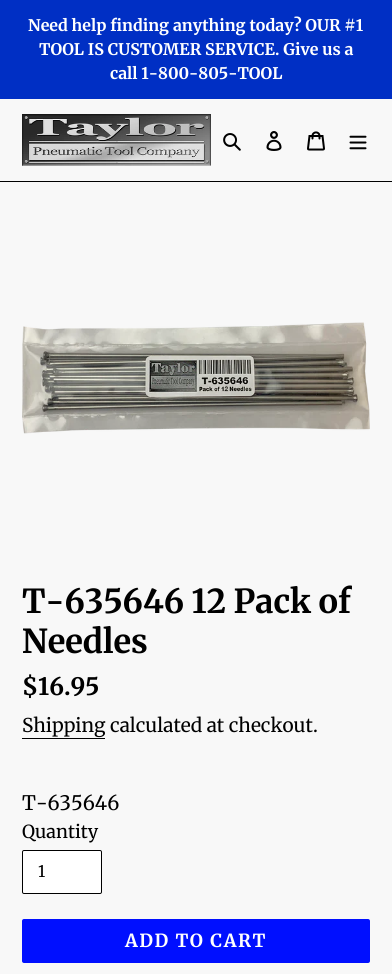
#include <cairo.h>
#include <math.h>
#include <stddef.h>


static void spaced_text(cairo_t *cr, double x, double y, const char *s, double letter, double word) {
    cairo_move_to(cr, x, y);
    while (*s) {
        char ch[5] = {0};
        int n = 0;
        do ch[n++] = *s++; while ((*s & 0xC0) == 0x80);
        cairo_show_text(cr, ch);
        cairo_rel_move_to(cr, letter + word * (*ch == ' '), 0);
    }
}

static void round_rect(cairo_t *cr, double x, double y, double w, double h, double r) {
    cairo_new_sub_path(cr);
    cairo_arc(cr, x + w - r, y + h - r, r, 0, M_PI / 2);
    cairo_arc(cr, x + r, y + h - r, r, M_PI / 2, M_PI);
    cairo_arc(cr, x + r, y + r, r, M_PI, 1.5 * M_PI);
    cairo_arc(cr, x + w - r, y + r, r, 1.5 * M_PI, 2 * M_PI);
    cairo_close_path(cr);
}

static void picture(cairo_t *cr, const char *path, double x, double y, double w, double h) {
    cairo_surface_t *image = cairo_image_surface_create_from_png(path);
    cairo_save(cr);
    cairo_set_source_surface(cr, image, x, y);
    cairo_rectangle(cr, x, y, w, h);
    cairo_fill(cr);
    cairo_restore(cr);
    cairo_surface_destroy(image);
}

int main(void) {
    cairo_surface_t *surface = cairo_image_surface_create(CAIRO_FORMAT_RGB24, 392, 974);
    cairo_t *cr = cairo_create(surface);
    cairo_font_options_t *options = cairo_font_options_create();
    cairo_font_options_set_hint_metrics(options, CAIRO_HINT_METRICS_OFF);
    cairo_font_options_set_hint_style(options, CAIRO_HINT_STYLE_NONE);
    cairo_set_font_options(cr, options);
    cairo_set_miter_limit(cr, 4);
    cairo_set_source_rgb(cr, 0.969, 0.969, 0.969);
    cairo_paint(cr);
    cairo_set_source_rgb(cr, 0, 0.184, 0.769);
    cairo_rectangle(cr, 0, 0, 392, 99);
    cairo_fill(cr);
    cairo_select_font_face(cr, "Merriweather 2", CAIRO_FONT_SLANT_NORMAL, CAIRO_FONT_WEIGHT_BOLD);
    cairo_set_font_size(cr, 16);
    cairo_set_source_rgb(cr, 1, 1, 1);
    cairo_move_to(cr, 28, 31);
    cairo_show_text(cr, "Need help finding anything today? OUR #1");
    cairo_move_to(cr, 39, 55);
    cairo_show_text(cr, "TOOL IS CUSTOMER SERVICE. Give us a");
    cairo_move_to(cr, 110, 79);
    cairo_show_text(cr, "call 1-800-805-TOOL");
    cairo_set_source_rgb(cr, 0, 0, 0);
    cairo_rectangle(cr, 0, 181, 392, 1);
    cairo_fill(cr);
    picture(cr, "img1.png", 22, 114, 189, 52);
    picture(cr, "img2.png", 223, 133, 18, 18);
    picture(cr, "img3.png", 266, 131, 16, 20);
    picture(cr, "img4.png", 307, 131, 18, 20);
    picture(cr, "img5.png", 349, 135, 18, 15);
    picture(cr, "img6.png", 22, 322, 348, 112);
    cairo_select_font_face(cr, "Merriweather", CAIRO_FONT_SLANT_NORMAL, CAIRO_FONT_WEIGHT_BOLD);
    cairo_set_font_size(cr, 33);
    cairo_move_to(cr, 22, 613);
    cairo_show_text(cr, "T-635646 12 Pack of");
    cairo_move_to(cr, 22, 653);
    cairo_show_text(cr, "Needles");
    cairo_select_font_face(cr, "Merriweather 2", CAIRO_FONT_SLANT_NORMAL, CAIRO_FONT_WEIGHT_BOLD);
    cairo_set_font_size(cr, 24);
    cairo_move_to(cr, 22, 695);
    cairo_show_text(cr, "$16.95");
    cairo_select_font_face(cr, "Merriweather", CAIRO_FONT_SLANT_NORMAL, CAIRO_FONT_WEIGHT_NORMAL);
    cairo_set_font_size(cr, 19);
    cairo_move_to(cr, 22, 732);
    cairo_show_text(cr, "Shipping calculated at checkout.");
    cairo_rectangle(cr, 22, 738, 83, 1);
    cairo_fill(cr);
    cairo_set_font_size(cr, 20);
    cairo_move_to(cr, 22, 810);
    cairo_show_text(cr, "T-635646");
    cairo_set_font_size(cr, 18);
    cairo_move_to(cr, 22, 838);
    cairo_show_text(cr, "Quantity");
    cairo_set_source_rgb(cr, 1, 1, 1);
    round_rect(cr, 22.5, 850.5, 79, 43, 1.5);
    cairo_fill_preserve(cr);
    cairo_set_source_rgb(cr, 0, 0, 0);
    cairo_set_line_width(cr, 1);
    cairo_stroke(cr);
    cairo_set_font_size(cr, 16);
    cairo_move_to(cr, 38, 877);
    cairo_show_text(cr, "1");
    cairo_set_source_rgb(cr, 0, 0.059, 1);
    round_rect(cr, 22, 919, 348, 44, 2);
    cairo_fill(cr);
    cairo_select_font_face(cr, "Merriweather 2", CAIRO_FONT_SLANT_NORMAL, CAIRO_FONT_WEIGHT_BOLD);
    cairo_set_font_size(cr, 18);
    cairo_set_source_rgb(cr, 1, 1, 1);
    spaced_text(cr, 125, 947, "ADD TO CART", 1.5, 0);
    cairo_surface_write_to_png(surface, "page.png");
    cairo_font_options_destroy(options);
    cairo_destroy(cr);
    cairo_surface_destroy(surface);
    return 0;
}
